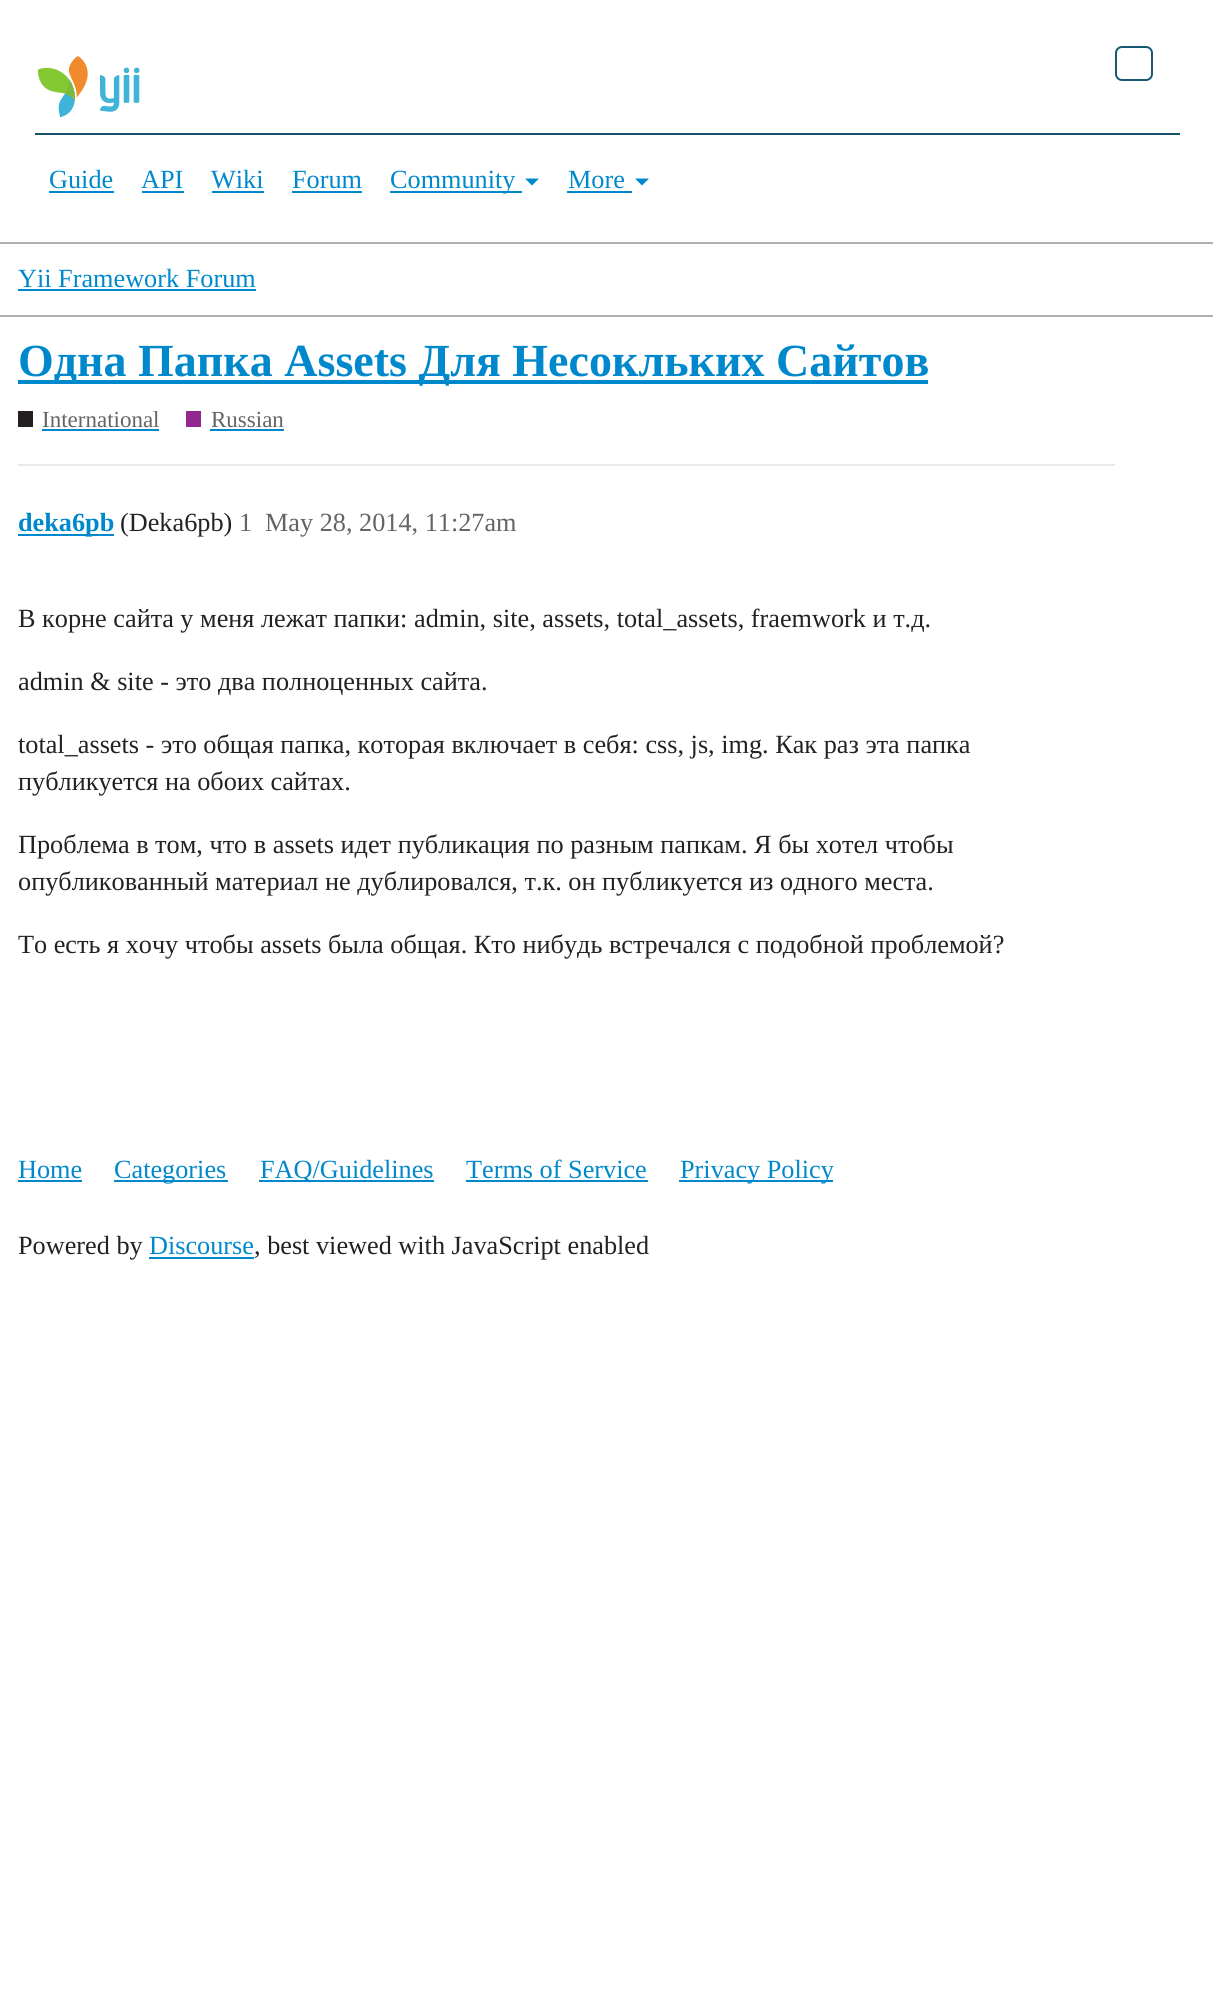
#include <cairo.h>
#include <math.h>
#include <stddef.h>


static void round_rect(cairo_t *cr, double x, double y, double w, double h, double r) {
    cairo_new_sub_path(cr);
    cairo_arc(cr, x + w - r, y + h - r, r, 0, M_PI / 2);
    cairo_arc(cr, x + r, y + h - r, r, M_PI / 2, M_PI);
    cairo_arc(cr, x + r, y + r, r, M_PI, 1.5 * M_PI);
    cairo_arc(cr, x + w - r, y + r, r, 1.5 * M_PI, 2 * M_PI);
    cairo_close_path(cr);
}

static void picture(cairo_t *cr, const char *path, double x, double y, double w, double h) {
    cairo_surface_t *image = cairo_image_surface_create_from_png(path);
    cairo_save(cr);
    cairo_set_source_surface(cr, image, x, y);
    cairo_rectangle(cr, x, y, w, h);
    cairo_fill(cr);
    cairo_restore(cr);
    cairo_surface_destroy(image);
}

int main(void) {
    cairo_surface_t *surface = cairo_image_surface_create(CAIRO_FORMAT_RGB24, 1213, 1999);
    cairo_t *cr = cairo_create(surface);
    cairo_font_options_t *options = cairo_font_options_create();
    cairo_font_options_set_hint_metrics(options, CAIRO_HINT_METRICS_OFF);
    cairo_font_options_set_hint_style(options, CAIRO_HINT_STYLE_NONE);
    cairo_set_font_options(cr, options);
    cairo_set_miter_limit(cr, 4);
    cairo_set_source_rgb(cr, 1, 1, 1);
    cairo_paint(cr);
    cairo_set_source_rgb(cr, 0.686, 0.686, 0.686);
    cairo_rectangle(cr, 0, 242, 1213, 2);
    cairo_fill(cr);
    picture(cr, "img1.png", 37, 56, 103, 61);
    round_rect(cr, 1116, 47, 36, 33, 6);
    cairo_set_source_rgb(cr, 0.098, 0.345, 0.447);
    cairo_stroke(cr);
    cairo_set_source_rgb(cr, 0.094, 0.318, 0.416);
    cairo_rectangle(cr, 35, 133, 1145, 2);
    cairo_fill(cr);
    cairo_select_font_face(cr, "Liberation Serif", CAIRO_FONT_SLANT_NORMAL, CAIRO_FONT_WEIGHT_NORMAL);
    cairo_set_font_size(cr, 26.25);
    cairo_set_source_rgb(cr, 0, 0.533, 0.8);
    cairo_move_to(cr, 49, 188);
    cairo_show_text(cr, "Guide");
    cairo_rectangle(cr, 49, 191, 65, 2);
    cairo_fill(cr);
    cairo_move_to(cr, 141, 188);
    cairo_show_text(cr, "API");
    cairo_rectangle(cr, 142, 191, 42, 2);
    cairo_fill(cr);
    cairo_move_to(cr, 211, 188);
    cairo_show_text(cr, "Wiki");
    cairo_rectangle(cr, 212, 191, 52, 2);
    cairo_fill(cr);
    cairo_move_to(cr, 292, 188);
    cairo_show_text(cr, "Forum");
    cairo_rectangle(cr, 292, 191, 70, 2);
    cairo_fill(cr);
    cairo_rectangle(cr, 390, 191, 132, 2);
    cairo_fill(cr);
    cairo_move_to(cr, 390, 188);
    cairo_show_text(cr, "Community");
    cairo_new_path(cr);
    cairo_move_to(cr, 525, 178.5);
    cairo_line_to(cr, 539, 178.5);
    cairo_line_to(cr, 532, 185.5);
    cairo_close_path(cr);
    cairo_fill(cr);
    cairo_move_to(cr, 568, 188);
    cairo_show_text(cr, "More");
    cairo_rectangle(cr, 567, 191, 65, 2);
    cairo_fill(cr);
    cairo_new_path(cr);
    cairo_move_to(cr, 635, 178.5);
    cairo_line_to(cr, 649, 178.5);
    cairo_line_to(cr, 642, 185.5);
    cairo_close_path(cr);
    cairo_fill(cr);
    cairo_set_source_rgb(cr, 0.686, 0.686, 0.686);
    cairo_rectangle(cr, 0, 315, 1213, 2);
    cairo_fill(cr);
    cairo_set_source_rgb(cr, 0, 0.533, 0.8);
    cairo_move_to(cr, 18, 287);
    cairo_show_text(cr, "Yii Framework Forum");
    cairo_rectangle(cr, 18, 289, 238, 2);
    cairo_fill(cr);
    cairo_rectangle(cr, 18, 380, 910, 4);
    cairo_fill(cr);
    cairo_select_font_face(cr, "Liberation Serif", CAIRO_FONT_SLANT_NORMAL, CAIRO_FONT_WEIGHT_BOLD);
    cairo_set_font_size(cr, 46);
    cairo_move_to(cr, 18, 376);
    cairo_show_text(cr, "Одна Папка Assets Для Несокльких Сайтов");
    cairo_set_source_rgb(cr, 0.137, 0.122, 0.125);
    cairo_rectangle(cr, 18, 411, 15, 16);
    cairo_fill(cr);
    cairo_select_font_face(cr, "Liberation Serif", CAIRO_FONT_SLANT_NORMAL, CAIRO_FONT_WEIGHT_NORMAL);
    cairo_set_font_size(cr, 23);
    cairo_set_source_rgb(cr, 0.392, 0.392, 0.392);
    cairo_move_to(cr, 42, 427);
    cairo_show_text(cr, "International");
    cairo_set_source_rgb(cr, 0, 0.533, 0.8);
    cairo_rectangle(cr, 42, 429, 117, 2);
    cairo_fill(cr);
    cairo_set_source_rgb(cr, 0.573, 0.153, 0.561);
    cairo_rectangle(cr, 186, 411, 15, 16);
    cairo_fill(cr);
    cairo_set_source_rgb(cr, 0.392, 0.392, 0.392);
    cairo_move_to(cr, 211, 427);
    cairo_show_text(cr, "Russian");
    cairo_set_source_rgb(cr, 0, 0.533, 0.8);
    cairo_rectangle(cr, 210, 429, 74, 2);
    cairo_fill(cr);
    cairo_set_source_rgb(cr, 0.914, 0.914, 0.914);
    cairo_rectangle(cr, 18, 464, 1097, 2);
    cairo_fill(cr);
    cairo_set_source_rgb(cr, 0, 0.533, 0.8);
    cairo_rectangle(cr, 18, 534, 96, 2);
    cairo_fill(cr);
    cairo_select_font_face(cr, "Liberation Serif", CAIRO_FONT_SLANT_NORMAL, CAIRO_FONT_WEIGHT_BOLD);
    cairo_set_font_size(cr, 26.25);
    cairo_move_to(cr, 18, 531);
    cairo_show_text(cr, "deka6pb");
    cairo_select_font_face(cr, "Liberation Serif", CAIRO_FONT_SLANT_NORMAL, CAIRO_FONT_WEIGHT_NORMAL);
    cairo_set_source_rgb(cr, 0.133, 0.133, 0.133);
    cairo_move_to(cr, 120, 531);
    cairo_show_text(cr, "(Deka6pb)");
    cairo_set_source_rgb(cr, 0.392, 0.392, 0.392);
    cairo_move_to(cr, 239, 531);
    cairo_show_text(cr, "1");
    cairo_move_to(cr, 265, 531);
    cairo_show_text(cr, "May 28, 2014, 11:27am");
    cairo_set_source_rgb(cr, 0.133, 0.133, 0.133);
    cairo_move_to(cr, 18, 627);
    cairo_show_text(cr, "В корне сайта у меня лежат папки: admin, site, assets, total_assets, fraemwork и т.д.");
    cairo_move_to(cr, 18, 690);
    cairo_show_text(cr, "admin & site - это два полноценных сайта.");
    cairo_move_to(cr, 18, 753);
    cairo_show_text(cr, "total_assets - это общая папка, которая включает в себя: css, js, img. Как раз эта папка");
    cairo_move_to(cr, 18, 790);
    cairo_show_text(cr, "публикуется на обоих сайтах.");
    cairo_move_to(cr, 18, 853);
    cairo_show_text(cr, "Проблема в том, что в assets идет публикация по разным папкам. Я бы хотел чтобы");
    cairo_move_to(cr, 18, 890);
    cairo_show_text(cr, "опубликованный материал не дублировался, т.к. он публикуется из одного места.");
    cairo_move_to(cr, 18, 953);
    cairo_show_text(cr, "То есть я хочу чтобы assets была общая. Кто нибудь встречался с подобной проблемой?");
    cairo_set_source_rgb(cr, 0, 0.533, 0.8);
    cairo_move_to(cr, 18, 1178);
    cairo_show_text(cr, "Home");
    cairo_rectangle(cr, 18, 1180, 64, 2);
    cairo_fill(cr);
    cairo_rectangle(cr, 114, 1180, 114, 2);
    cairo_fill(cr);
    cairo_move_to(cr, 114, 1178);
    cairo_show_text(cr, "Categories");
    cairo_rectangle(cr, 259, 1180, 175, 2);
    cairo_fill(cr);
    cairo_move_to(cr, 260, 1178);
    cairo_show_text(cr, "FAQ/Guidelines");
    cairo_move_to(cr, 466, 1178);
    cairo_show_text(cr, "Terms of Service");
    cairo_rectangle(cr, 466, 1180, 182, 2);
    cairo_fill(cr);
    cairo_rectangle(cr, 679, 1180, 154, 2);
    cairo_fill(cr);
    cairo_move_to(cr, 680, 1178);
    cairo_show_text(cr, "Privacy Policy");
    cairo_set_source_rgb(cr, 0.133, 0.133, 0.133);
    cairo_move_to(cr, 18, 1254);
    cairo_show_text(cr, "Powered by");
    cairo_set_source_rgb(cr, 0, 0.533, 0.8);
    cairo_move_to(cr, 149, 1254);
    cairo_show_text(cr, "Discourse");
    cairo_rectangle(cr, 149, 1257, 105, 2);
    cairo_fill(cr);
    cairo_set_source_rgb(cr, 0.133, 0.133, 0.133);
    cairo_move_to(cr, 254, 1254);
    cairo_show_text(cr, ", best viewed with JavaScript enabled");
    cairo_surface_write_to_png(surface, "page.png");
    cairo_font_options_destroy(options);
    cairo_destroy(cr);
    cairo_surface_destroy(surface);
    return 0;
}
